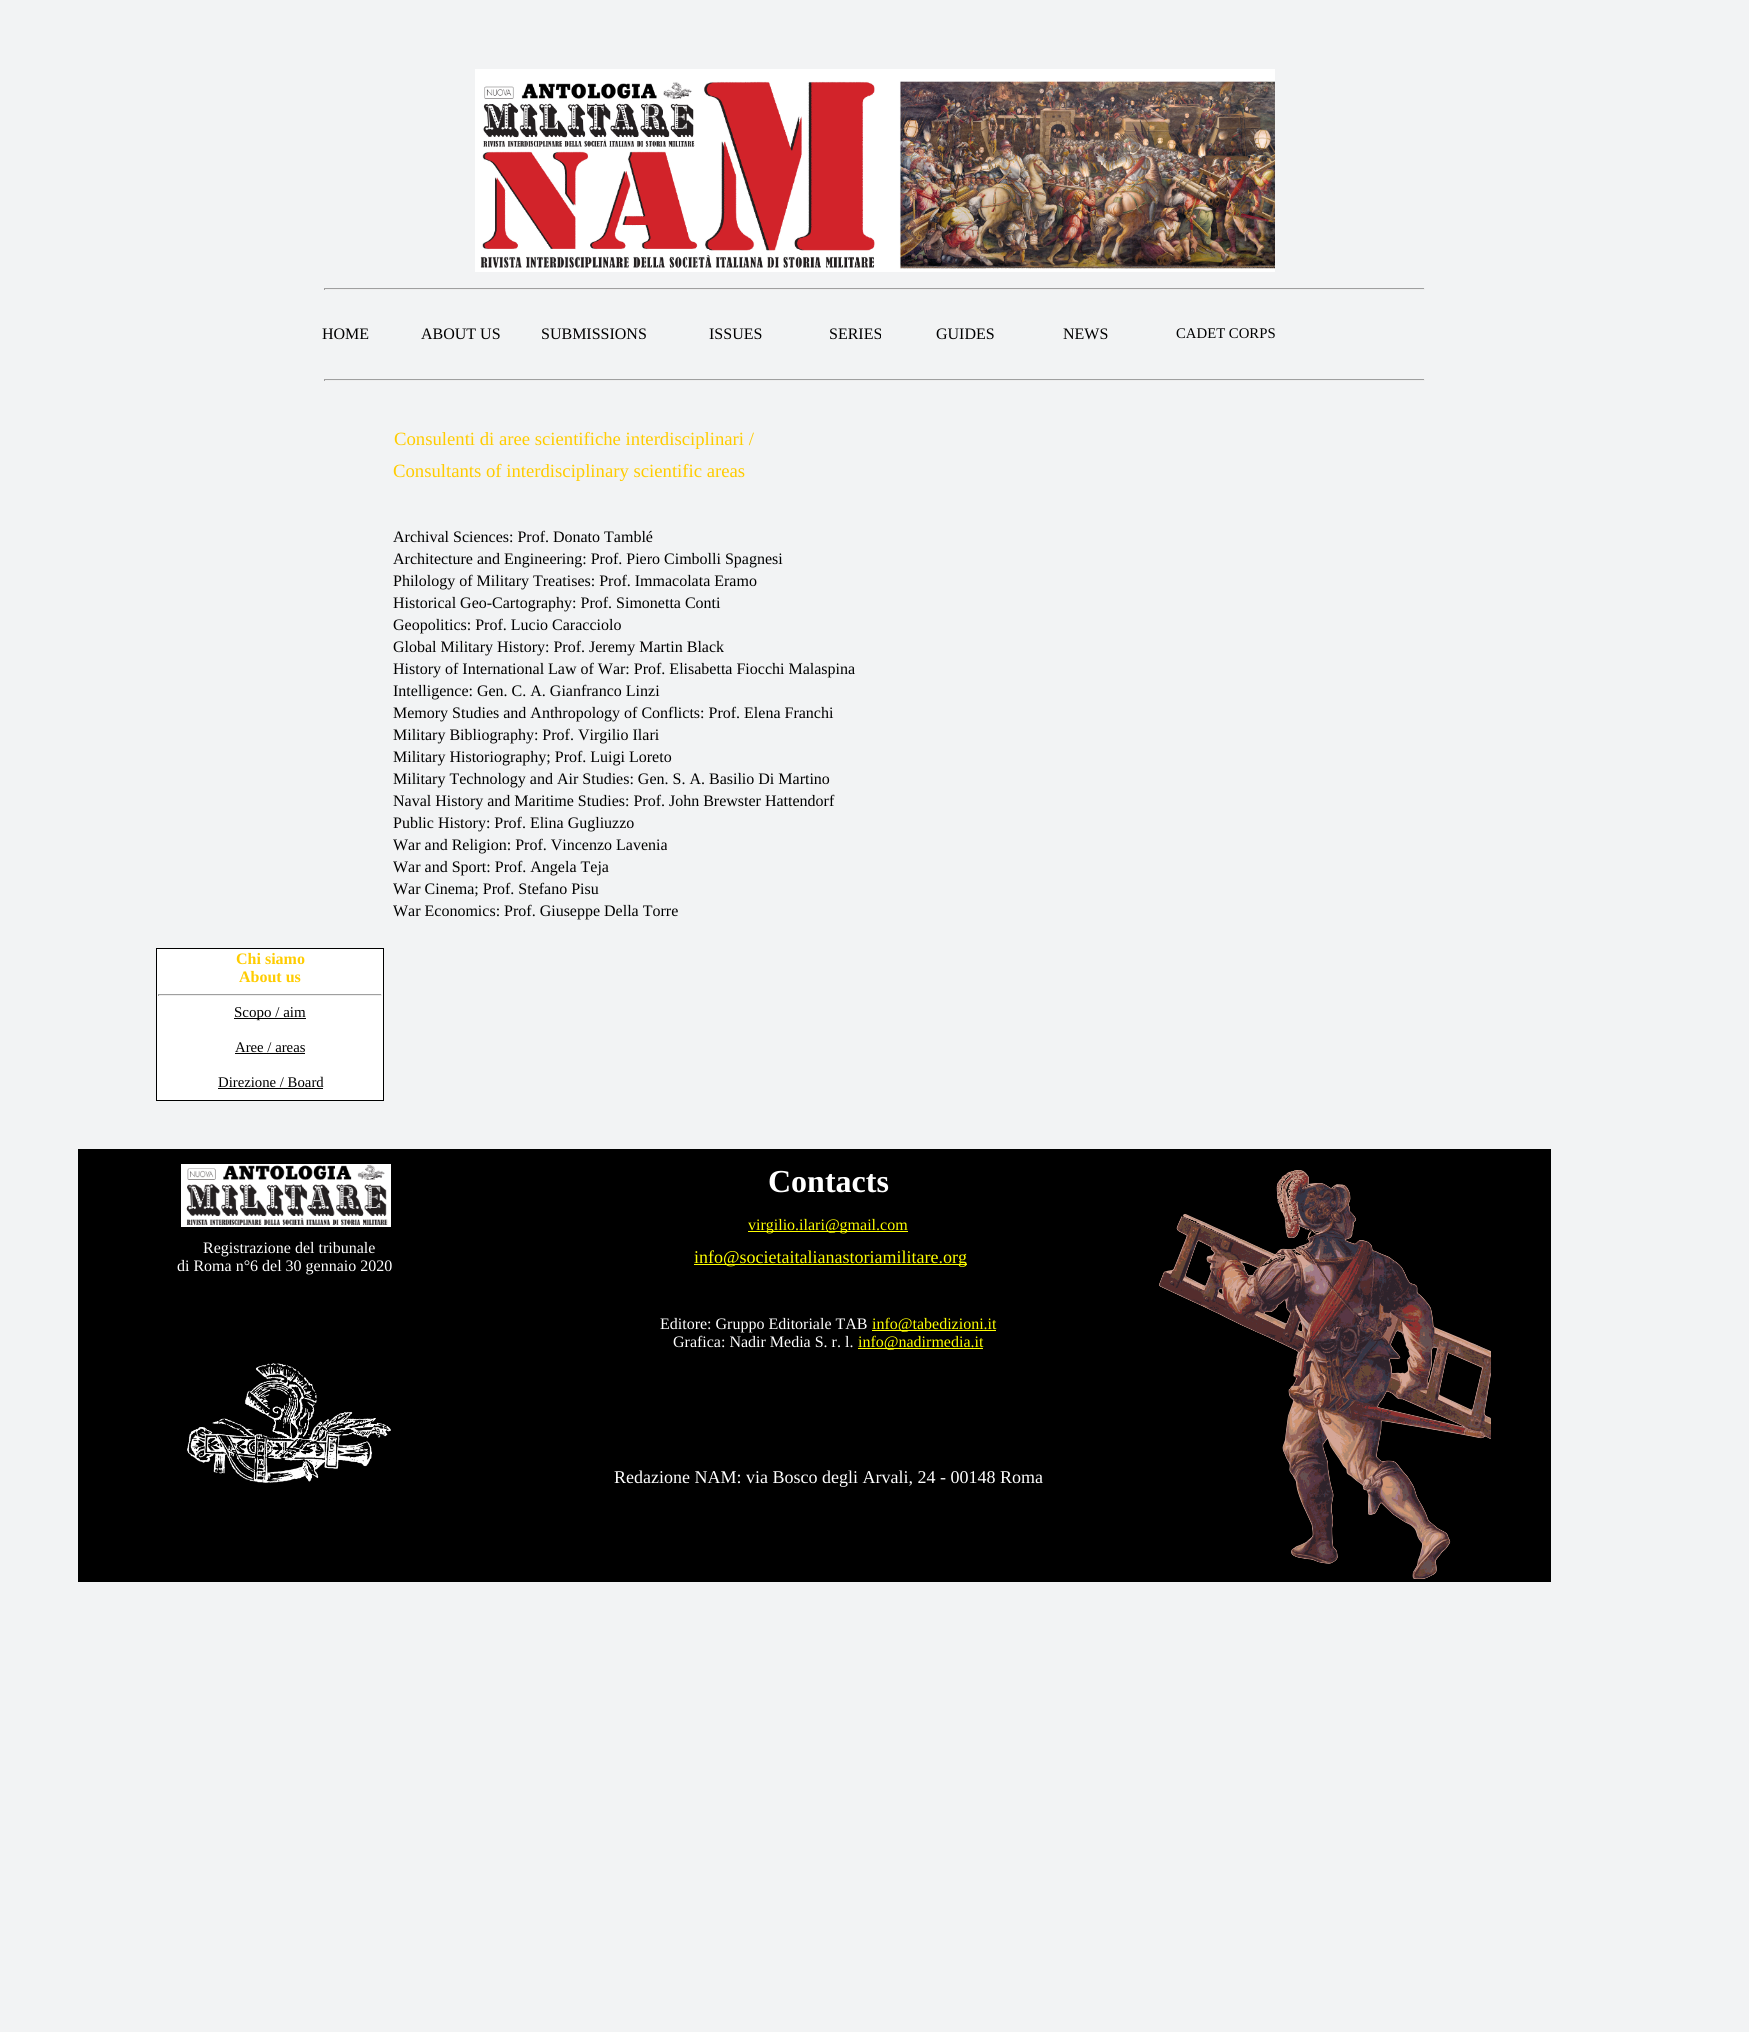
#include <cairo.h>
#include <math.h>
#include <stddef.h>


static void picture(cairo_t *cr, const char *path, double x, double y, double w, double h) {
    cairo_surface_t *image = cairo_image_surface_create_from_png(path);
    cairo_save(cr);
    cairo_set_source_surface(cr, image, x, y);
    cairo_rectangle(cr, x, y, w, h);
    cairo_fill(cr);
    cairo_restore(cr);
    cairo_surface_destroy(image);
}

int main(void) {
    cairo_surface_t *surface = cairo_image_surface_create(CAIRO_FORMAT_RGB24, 1749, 2032);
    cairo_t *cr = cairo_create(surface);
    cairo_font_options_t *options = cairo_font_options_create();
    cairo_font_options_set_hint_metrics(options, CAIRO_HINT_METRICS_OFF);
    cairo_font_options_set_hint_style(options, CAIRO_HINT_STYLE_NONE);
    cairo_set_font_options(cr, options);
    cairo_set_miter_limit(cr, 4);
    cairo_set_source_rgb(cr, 0.949, 0.953, 0.957);
    cairo_paint(cr);
    picture(cr, "img1.png", 475, 69, 800, 203);
    cairo_set_source_rgb(cr, 0.624, 0.624, 0.624);
    cairo_rectangle(cr, 324, 288, 1101, 1);
    cairo_fill(cr);
    cairo_set_source_rgb(cr, 0.933, 0.933, 0.933);
    cairo_rectangle(cr, 1424, 288, 1, 2);
    cairo_fill(cr);
    cairo_rectangle(cr, 324, 289, 1101, 1);
    cairo_fill(cr);
    cairo_set_source_rgb(cr, 0.624, 0.624, 0.624);
    cairo_rectangle(cr, 324, 288, 1, 2);
    cairo_fill(cr);
    cairo_select_font_face(cr, "Liberation Serif", CAIRO_FONT_SLANT_NORMAL, CAIRO_FONT_WEIGHT_NORMAL);
    cairo_set_font_size(cr, 16);
    cairo_set_source_rgb(cr, 0, 0, 0);
    cairo_move_to(cr, 322, 339);
    cairo_show_text(cr, "HOME");
    cairo_move_to(cr, 421, 339);
    cairo_show_text(cr, "ABOUT US");
    cairo_move_to(cr, 541, 339);
    cairo_show_text(cr, "SUBMISSIONS");
    cairo_move_to(cr, 709, 339);
    cairo_show_text(cr, "ISSUES");
    cairo_move_to(cr, 829, 339);
    cairo_show_text(cr, "SERIES");
    cairo_move_to(cr, 936, 339);
    cairo_show_text(cr, "GUIDES");
    cairo_move_to(cr, 1063, 339);
    cairo_show_text(cr, "NEWS");
    cairo_set_font_size(cr, 14.75);
    cairo_move_to(cr, 1176, 338);
    cairo_show_text(cr, "CADET CORPS");
    cairo_set_source_rgb(cr, 0.624, 0.624, 0.624);
    cairo_rectangle(cr, 324, 379, 1101, 1);
    cairo_fill(cr);
    cairo_set_source_rgb(cr, 0.933, 0.933, 0.933);
    cairo_rectangle(cr, 1424, 379, 1, 2);
    cairo_fill(cr);
    cairo_rectangle(cr, 324, 380, 1101, 1);
    cairo_fill(cr);
    cairo_set_source_rgb(cr, 0.624, 0.624, 0.624);
    cairo_rectangle(cr, 324, 379, 1, 2);
    cairo_fill(cr);
    cairo_set_font_size(cr, 18.7);
    cairo_set_source_rgb(cr, 1, 0.8, 0);
    cairo_move_to(cr, 394, 445);
    cairo_show_text(cr, "Consulenti di aree scientifiche interdisciplinari /");
    cairo_move_to(cr, 393, 477);
    cairo_show_text(cr, "Consultants of interdisciplinary scientific areas");
    cairo_set_font_size(cr, 16);
    cairo_set_source_rgb(cr, 0, 0, 0);
    cairo_move_to(cr, 393, 542);
    cairo_show_text(cr, "Archival Sciences: Prof. Donato Tamblé");
    cairo_move_to(cr, 393, 564);
    cairo_show_text(cr, "Architecture and Engineering: Prof. Piero Cimbolli Spagnesi");
    cairo_move_to(cr, 393, 586);
    cairo_show_text(cr, "Philology of Military Treatises: Prof. Immacolata Eramo");
    cairo_move_to(cr, 393, 608);
    cairo_show_text(cr, "Historical Geo-Cartography: Prof. Simonetta Conti");
    cairo_move_to(cr, 393, 630);
    cairo_show_text(cr, "Geopolitics: Prof. Lucio Caracciolo");
    cairo_move_to(cr, 393, 652);
    cairo_show_text(cr, "Global Military History: Prof. Jeremy Martin Black");
    cairo_move_to(cr, 393, 674);
    cairo_show_text(cr, "History of International Law of War: Prof. Elisabetta Fiocchi Malaspina");
    cairo_move_to(cr, 393, 696);
    cairo_show_text(cr, "Intelligence: Gen. C. A. Gianfranco Linzi");
    cairo_move_to(cr, 393, 718);
    cairo_show_text(cr, "Memory Studies and Anthropology of Conflicts: Prof. Elena Franchi");
    cairo_move_to(cr, 393, 740);
    cairo_show_text(cr, "Military Bibliography: Prof. Virgilio Ilari");
    cairo_move_to(cr, 393, 762);
    cairo_show_text(cr, "Military Historiography; Prof. Luigi Loreto");
    cairo_move_to(cr, 393, 784);
    cairo_show_text(cr, "Military Technology and Air Studies: Gen. S. A. Basilio Di Martino");
    cairo_move_to(cr, 393, 806);
    cairo_show_text(cr, "Naval History and Maritime Studies: Prof. John Brewster Hattendorf");
    cairo_move_to(cr, 393, 828);
    cairo_show_text(cr, "Public History: Prof. Elina Gugliuzzo");
    cairo_move_to(cr, 393, 850);
    cairo_show_text(cr, "War and Religion: Prof. Vincenzo Lavenia");
    cairo_move_to(cr, 393, 872);
    cairo_show_text(cr, "War and Sport: Prof. Angela Teja");
    cairo_move_to(cr, 393, 894);
    cairo_show_text(cr, "War Cinema; Prof. Stefano Pisu");
    cairo_move_to(cr, 393, 916);
    cairo_show_text(cr, "War Economics: Prof. Giuseppe Della Torre");
    cairo_set_source_rgb(cr, 1, 1, 1);
    cairo_rectangle(cr, 156.5, 948.5, 227, 152);
    cairo_fill_preserve(cr);
    cairo_set_source_rgb(cr, 0, 0, 0);
    cairo_set_line_width(cr, 1);
    cairo_stroke(cr);
    cairo_select_font_face(cr, "Liberation Serif", CAIRO_FONT_SLANT_NORMAL, CAIRO_FONT_WEIGHT_BOLD);
    cairo_set_source_rgb(cr, 1, 0.8, 0);
    cairo_move_to(cr, 236, 964);
    cairo_show_text(cr, "Chi siamo");
    cairo_move_to(cr, 239, 982);
    cairo_show_text(cr, "About us");
    cairo_set_source_rgb(cr, 0.624, 0.624, 0.624);
    cairo_rectangle(cr, 158, 994, 224, 1);
    cairo_fill(cr);
    cairo_set_source_rgb(cr, 0.933, 0.933, 0.933);
    cairo_rectangle(cr, 381, 994, 1, 2);
    cairo_fill(cr);
    cairo_rectangle(cr, 158, 995, 224, 1);
    cairo_fill(cr);
    cairo_set_source_rgb(cr, 0.624, 0.624, 0.624);
    cairo_rectangle(cr, 158, 994, 1, 2);
    cairo_fill(cr);
    cairo_set_source_rgb(cr, 0, 0, 0);
    cairo_rectangle(cr, 234, 1018, 72, 1);
    cairo_fill(cr);
    cairo_select_font_face(cr, "Liberation Serif", CAIRO_FONT_SLANT_NORMAL, CAIRO_FONT_WEIGHT_NORMAL);
    cairo_set_font_size(cr, 15);
    cairo_move_to(cr, 234, 1017);
    cairo_show_text(cr, "Scopo / aim");
    cairo_set_font_size(cr, 14.75);
    cairo_move_to(cr, 235, 1052);
    cairo_show_text(cr, "Aree / areas");
    cairo_rectangle(cr, 235, 1053, 70, 1);
    cairo_fill(cr);
    cairo_move_to(cr, 218, 1087);
    cairo_show_text(cr, "Direzione / Board");
    cairo_rectangle(cr, 218, 1088, 105, 1);
    cairo_fill(cr);
    cairo_rectangle(cr, 78, 1149, 1473, 433);
    cairo_fill(cr);
    picture(cr, "img2.png", 181, 1164, 210, 63);
    cairo_set_font_size(cr, 16);
    cairo_set_source_rgb(cr, 1, 1, 1);
    cairo_move_to(cr, 203, 1253);
    cairo_show_text(cr, "Registrazione del tribunale");
    cairo_move_to(cr, 177, 1271);
    cairo_show_text(cr, "di Roma n°6 del 30 gennaio 2020");
    cairo_select_font_face(cr, "Liberation Serif", CAIRO_FONT_SLANT_NORMAL, CAIRO_FONT_WEIGHT_BOLD);
    cairo_set_font_size(cr, 32);
    cairo_move_to(cr, 768, 1192);
    cairo_show_text(cr, "Contacts");
    picture(cr, "img3.png", 1159, 1170, 332, 409);
    cairo_set_source_rgb(cr, 1, 1, 0);
    cairo_rectangle(cr, 748, 1231, 160, 1);
    cairo_fill(cr);
    cairo_select_font_face(cr, "Liberation Serif", CAIRO_FONT_SLANT_NORMAL, CAIRO_FONT_WEIGHT_NORMAL);
    cairo_set_font_size(cr, 16);
    cairo_move_to(cr, 748, 1230);
    cairo_show_text(cr, "virgilio.ilari@gmail.com");
    cairo_rectangle(cr, 694, 1264, 273, 1);
    cairo_fill(cr);
    cairo_set_font_size(cr, 18);
    cairo_move_to(cr, 694, 1263);
    cairo_show_text(cr, "info@societaitalianastoriamilitare.org");
    cairo_set_font_size(cr, 16);
    cairo_set_source_rgb(cr, 1, 1, 1);
    cairo_move_to(cr, 660, 1329);
    cairo_show_text(cr, "Editore: Gruppo Editoriale TAB");
    cairo_set_source_rgb(cr, 1, 1, 0);
    cairo_rectangle(cr, 872, 1330, 124, 1);
    cairo_fill(cr);
    cairo_move_to(cr, 872, 1329);
    cairo_show_text(cr, "info@tabedizioni.it");
    cairo_set_source_rgb(cr, 1, 1, 1);
    cairo_move_to(cr, 673, 1347);
    cairo_show_text(cr, "Grafica: Nadir Media S. r. l.");
    cairo_set_source_rgb(cr, 1, 1, 0);
    cairo_rectangle(cr, 858, 1348, 125, 1);
    cairo_fill(cr);
    cairo_move_to(cr, 858, 1347);
    cairo_show_text(cr, "info@nadirmedia.it");
    picture(cr, "img4.png", 187, 1363, 204, 120);
    cairo_set_font_size(cr, 18);
    cairo_set_source_rgb(cr, 1, 1, 1);
    cairo_move_to(cr, 614, 1483);
    cairo_show_text(cr, "Redazione NAM: via Bosco degli Arvali, 24 - 00148 Roma");
    cairo_surface_write_to_png(surface, "page.png");
    cairo_font_options_destroy(options);
    cairo_destroy(cr);
    cairo_surface_destroy(surface);
    return 0;
}
